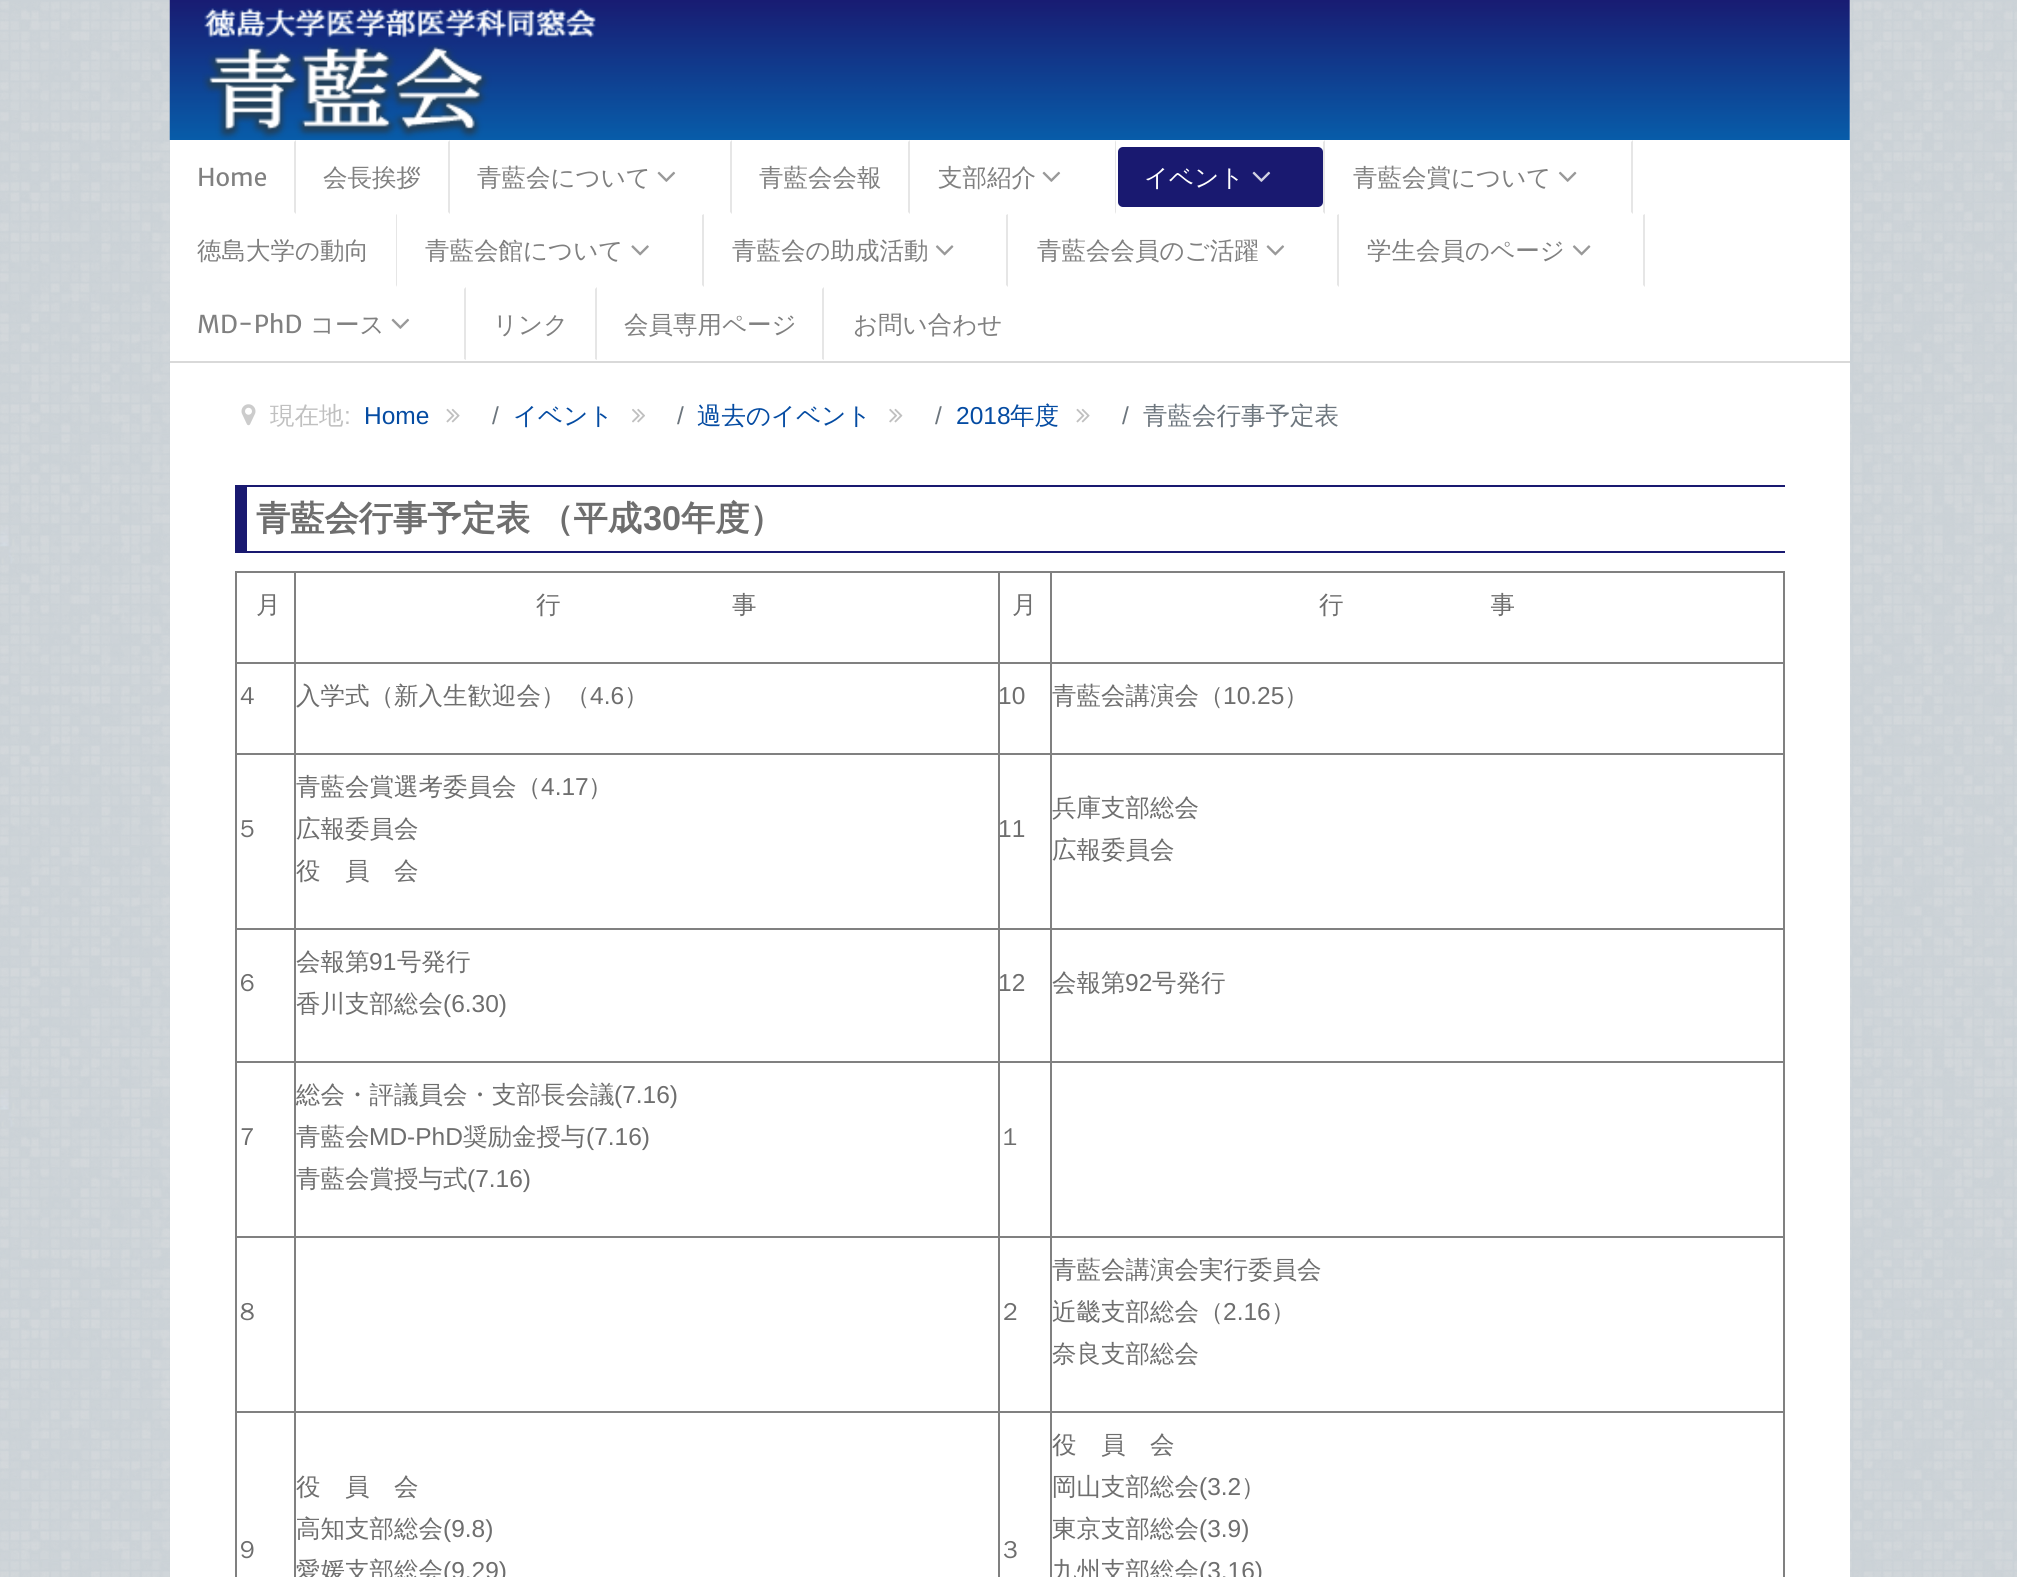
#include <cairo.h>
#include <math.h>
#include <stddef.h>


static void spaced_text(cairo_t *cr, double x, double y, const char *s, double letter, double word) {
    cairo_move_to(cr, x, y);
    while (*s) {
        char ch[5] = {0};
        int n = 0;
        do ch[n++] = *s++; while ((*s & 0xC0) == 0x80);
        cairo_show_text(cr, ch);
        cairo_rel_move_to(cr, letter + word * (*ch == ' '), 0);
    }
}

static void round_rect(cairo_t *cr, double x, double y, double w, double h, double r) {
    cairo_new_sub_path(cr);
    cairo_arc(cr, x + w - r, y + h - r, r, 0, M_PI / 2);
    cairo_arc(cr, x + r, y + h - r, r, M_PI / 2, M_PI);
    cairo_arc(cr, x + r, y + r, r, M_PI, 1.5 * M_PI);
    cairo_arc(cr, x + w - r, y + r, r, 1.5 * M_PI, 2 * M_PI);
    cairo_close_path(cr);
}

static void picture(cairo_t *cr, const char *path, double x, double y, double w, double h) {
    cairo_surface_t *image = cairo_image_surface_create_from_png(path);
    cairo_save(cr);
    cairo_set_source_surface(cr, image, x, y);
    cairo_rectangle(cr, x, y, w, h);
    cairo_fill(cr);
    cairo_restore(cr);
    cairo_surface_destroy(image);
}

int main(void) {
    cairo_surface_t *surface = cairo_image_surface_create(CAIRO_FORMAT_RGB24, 2017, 1577);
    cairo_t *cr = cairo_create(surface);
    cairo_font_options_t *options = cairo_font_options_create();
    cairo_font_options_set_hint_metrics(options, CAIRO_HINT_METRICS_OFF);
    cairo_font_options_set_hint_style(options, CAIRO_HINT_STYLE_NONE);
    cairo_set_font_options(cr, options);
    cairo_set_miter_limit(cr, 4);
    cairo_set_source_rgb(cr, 0.796, 0.824, 0.843);
    cairo_paint(cr);
    picture(cr, "img1.png", 0, 1, 2017, 1576);
    cairo_set_source_rgb(cr, 1, 1, 1);
    cairo_rectangle(cr, 170, 0, 1680, 361);
    cairo_fill(cr);
    picture(cr, "img2.png", 169, 0, 1681, 140);
    picture(cr, "img3.png", 202, 7, 394, 133);
    cairo_set_source_rgb(cr, 0.851, 0.851, 0.851);
    cairo_rectangle(cr, 170, 361, 1680, 2);
    cairo_fill(cr);
    cairo_set_source_rgb(cr, 0.902, 0.902, 0.902);
    cairo_new_path(cr);
    cairo_move_to(cr, 296, 140);
    cairo_line_to(cr, 296, 214);
    cairo_line_to(cr, 294, 212);
    cairo_line_to(cr, 294, 142);
    cairo_close_path(cr);
    cairo_fill(cr);
    cairo_select_font_face(cr, "Merriweather Sans", CAIRO_FONT_SLANT_NORMAL, CAIRO_FONT_WEIGHT_NORMAL);
    cairo_set_font_size(cr, 24.5);
    cairo_set_source_rgb(cr, 0.502, 0.502, 0.502);
    cairo_move_to(cr, 197, 186);
    cairo_show_text(cr, "Home");
    cairo_set_source_rgb(cr, 0.902, 0.902, 0.902);
    cairo_new_path(cr);
    cairo_move_to(cr, 450, 140);
    cairo_line_to(cr, 450, 214);
    cairo_line_to(cr, 448, 212);
    cairo_line_to(cr, 448, 142);
    cairo_close_path(cr);
    cairo_fill(cr);
    cairo_select_font_face(cr, "WenQuanYi Zen Hei Medium", CAIRO_FONT_SLANT_NORMAL, CAIRO_FONT_WEIGHT_NORMAL);
    cairo_set_source_rgb(cr, 0.502, 0.502, 0.502);
    cairo_move_to(cr, 323, 186);
    cairo_show_text(cr, "会長挨拶");
    cairo_set_source_rgb(cr, 0.902, 0.902, 0.902);
    cairo_new_path(cr);
    cairo_move_to(cr, 732, 140);
    cairo_line_to(cr, 732, 214);
    cairo_line_to(cr, 730, 212);
    cairo_line_to(cr, 730, 142);
    cairo_close_path(cr);
    cairo_fill(cr);
    cairo_set_source_rgb(cr, 0.502, 0.502, 0.502);
    cairo_move_to(cr, 477, 186);
    cairo_show_text(cr, "青藍会について");
    picture(cr, "img4.png", 657, 171, 19, 11);
    cairo_set_source_rgb(cr, 0.902, 0.902, 0.902);
    cairo_new_path(cr);
    cairo_move_to(cr, 910, 140);
    cairo_line_to(cr, 910, 214);
    cairo_line_to(cr, 908, 212);
    cairo_line_to(cr, 908, 142);
    cairo_close_path(cr);
    cairo_fill(cr);
    cairo_set_source_rgb(cr, 0.502, 0.502, 0.502);
    cairo_move_to(cr, 759, 186);
    cairo_show_text(cr, "青藍会会報");
    cairo_set_source_rgb(cr, 0.902, 0.902, 0.902);
    cairo_new_path(cr);
    cairo_move_to(cr, 1116, 140);
    cairo_line_to(cr, 1116, 214);
    cairo_line_to(cr, 1115, 212);
    cairo_line_to(cr, 1115, 142);
    cairo_close_path(cr);
    cairo_fill(cr);
    cairo_set_source_rgb(cr, 0.502, 0.502, 0.502);
    cairo_move_to(cr, 938, 186);
    cairo_show_text(cr, "支部紹介");
    picture(cr, "img4.png", 1042, 171, 19, 11);
    cairo_set_source_rgb(cr, 0.902, 0.902, 0.902);
    cairo_new_path(cr);
    cairo_move_to(cr, 1325, 140);
    cairo_line_to(cr, 1325, 214);
    cairo_line_to(cr, 1323, 212);
    cairo_line_to(cr, 1323, 142);
    cairo_close_path(cr);
    cairo_fill(cr);
    cairo_set_source_rgb(cr, 0.098, 0.098, 0.439);
    round_rect(cr, 1118, 147, 205, 60, 5);
    cairo_fill(cr);
    cairo_set_source_rgb(cr, 1, 1, 1);
    cairo_move_to(cr, 1144, 186);
    cairo_show_text(cr, "イベント");
    picture(cr, "img5.png", 1252, 171, 19, 11);
    cairo_set_source_rgb(cr, 0.902, 0.902, 0.902);
    cairo_new_path(cr);
    cairo_move_to(cr, 1633, 140);
    cairo_line_to(cr, 1633, 214);
    cairo_line_to(cr, 1631, 212);
    cairo_line_to(cr, 1631, 142);
    cairo_close_path(cr);
    cairo_fill(cr);
    cairo_set_source_rgb(cr, 0.502, 0.502, 0.502);
    cairo_move_to(cr, 1353, 186);
    cairo_show_text(cr, "青藍会賞について");
    picture(cr, "img6.png", 1558, 171, 19, 11);
    cairo_set_source_rgb(cr, 0.902, 0.902, 0.902);
    cairo_new_path(cr);
    cairo_move_to(cr, 397, 214);
    cairo_line_to(cr, 397, 287);
    cairo_line_to(cr, 396, 285);
    cairo_line_to(cr, 396, 215);
    cairo_close_path(cr);
    cairo_fill(cr);
    cairo_set_source_rgb(cr, 0.502, 0.502, 0.502);
    cairo_move_to(cr, 197, 259);
    cairo_show_text(cr, "徳島大学の動向");
    cairo_set_source_rgb(cr, 0.902, 0.902, 0.902);
    cairo_new_path(cr);
    cairo_move_to(cr, 704, 214);
    cairo_line_to(cr, 704, 287);
    cairo_line_to(cr, 702, 285);
    cairo_line_to(cr, 702, 215);
    cairo_close_path(cr);
    cairo_fill(cr);
    cairo_set_source_rgb(cr, 0.502, 0.502, 0.502);
    cairo_move_to(cr, 425, 259);
    cairo_show_text(cr, "青藍会館について");
    picture(cr, "img7.png", 631, 245, 18, 11);
    cairo_set_source_rgb(cr, 0.902, 0.902, 0.902);
    cairo_new_path(cr);
    cairo_move_to(cr, 1008, 214);
    cairo_line_to(cr, 1008, 287);
    cairo_line_to(cr, 1006, 285);
    cairo_line_to(cr, 1006, 215);
    cairo_close_path(cr);
    cairo_fill(cr);
    cairo_set_source_rgb(cr, 0.502, 0.502, 0.502);
    cairo_move_to(cr, 732, 259);
    cairo_show_text(cr, "青藍会の助成活動");
    picture(cr, "img8.png", 935, 245, 19, 11);
    cairo_set_source_rgb(cr, 0.902, 0.902, 0.902);
    cairo_new_path(cr);
    cairo_move_to(cr, 1339, 214);
    cairo_line_to(cr, 1339, 287);
    cairo_line_to(cr, 1337, 285);
    cairo_line_to(cr, 1337, 215);
    cairo_close_path(cr);
    cairo_fill(cr);
    cairo_set_source_rgb(cr, 0.502, 0.502, 0.502);
    cairo_move_to(cr, 1037, 259);
    cairo_show_text(cr, "青藍会会員のご活躍");
    picture(cr, "img9.png", 1266, 245, 19, 11);
    cairo_set_source_rgb(cr, 0.902, 0.902, 0.902);
    cairo_new_path(cr);
    cairo_move_to(cr, 1645, 214);
    cairo_line_to(cr, 1645, 287);
    cairo_line_to(cr, 1643, 285);
    cairo_line_to(cr, 1643, 215);
    cairo_close_path(cr);
    cairo_fill(cr);
    cairo_set_source_rgb(cr, 0.502, 0.502, 0.502);
    cairo_move_to(cr, 1367, 259);
    cairo_show_text(cr, "学生会員のページ");
    picture(cr, "img8.png", 1572, 245, 19, 11);
    cairo_set_source_rgb(cr, 0.902, 0.902, 0.902);
    cairo_new_path(cr);
    cairo_move_to(cr, 466, 287);
    cairo_line_to(cr, 466, 360);
    cairo_line_to(cr, 464, 359);
    cairo_line_to(cr, 464, 289);
    cairo_close_path(cr);
    cairo_fill(cr);
    cairo_select_font_face(cr, "Merriweather Sans", CAIRO_FONT_SLANT_NORMAL, CAIRO_FONT_WEIGHT_NORMAL);
    cairo_set_source_rgb(cr, 0.502, 0.502, 0.502);
    cairo_move_to(cr, 197, 333);
    cairo_show_text(cr, "MD-PhD");
    cairo_select_font_face(cr, "WenQuanYi Zen Hei Medium", CAIRO_FONT_SLANT_NORMAL, CAIRO_FONT_WEIGHT_NORMAL);
    cairo_move_to(cr, 310, 333);
    cairo_show_text(cr, "コース");
    picture(cr, "img4.png", 391, 318, 19, 11);
    cairo_set_source_rgb(cr, 0.902, 0.902, 0.902);
    cairo_new_path(cr);
    cairo_move_to(cr, 597, 287);
    cairo_line_to(cr, 597, 360);
    cairo_line_to(cr, 595, 359);
    cairo_line_to(cr, 595, 289);
    cairo_close_path(cr);
    cairo_fill(cr);
    cairo_set_source_rgb(cr, 0.502, 0.502, 0.502);
    cairo_move_to(cr, 493, 333);
    cairo_show_text(cr, "リンク");
    cairo_set_source_rgb(cr, 0.902, 0.902, 0.902);
    cairo_new_path(cr);
    cairo_move_to(cr, 824, 287);
    cairo_line_to(cr, 824, 360);
    cairo_line_to(cr, 822, 359);
    cairo_line_to(cr, 822, 289);
    cairo_close_path(cr);
    cairo_fill(cr);
    cairo_set_source_rgb(cr, 0.502, 0.502, 0.502);
    cairo_move_to(cr, 624, 333);
    cairo_show_text(cr, "会員専用ページ");
    cairo_move_to(cr, 853, 333);
    cairo_show_text(cr, "お問い合わせ");
    cairo_set_source_rgb(cr, 1, 1, 1);
    cairo_rectangle(cr, 170, 363, 1680, 1214);
    cairo_fill(cr);
    picture(cr, "img10.png", 241, 404, 15, 22);
    cairo_set_source_rgb(cr, 0.753, 0.753, 0.753);
    cairo_move_to(cr, 270, 424);
    cairo_show_text(cr, "現在地");
    cairo_select_font_face(cr, "Liberation Sans", CAIRO_FONT_SLANT_NORMAL, CAIRO_FONT_WEIGHT_NORMAL);
    cairo_move_to(cr, 344, 424);
    cairo_show_text(cr, ":");
    cairo_set_source_rgb(cr, 0.016, 0.294, 0.635);
    cairo_move_to(cr, 364, 424);
    cairo_show_text(cr, "Home");
    picture(cr, "img11.png", 446, 408, 14, 15);
    cairo_set_source_rgb(cr, 0.424, 0.459, 0.49);
    cairo_move_to(cr, 492, 424);
    cairo_show_text(cr, "/");
    cairo_select_font_face(cr, "WenQuanYi Zen Hei Medium", CAIRO_FONT_SLANT_NORMAL, CAIRO_FONT_WEIGHT_NORMAL);
    cairo_set_source_rgb(cr, 0.016, 0.294, 0.635);
    cairo_move_to(cr, 513, 424);
    cairo_show_text(cr, "イベント");
    picture(cr, "img12.png", 632, 408, 13, 15);
    cairo_select_font_face(cr, "Liberation Sans", CAIRO_FONT_SLANT_NORMAL, CAIRO_FONT_WEIGHT_NORMAL);
    cairo_set_source_rgb(cr, 0.424, 0.459, 0.49);
    cairo_move_to(cr, 677, 424);
    cairo_show_text(cr, "/");
    cairo_select_font_face(cr, "WenQuanYi Zen Hei Medium", CAIRO_FONT_SLANT_NORMAL, CAIRO_FONT_WEIGHT_NORMAL);
    cairo_set_source_rgb(cr, 0.016, 0.294, 0.635);
    cairo_move_to(cr, 697, 424);
    cairo_show_text(cr, "過去のイベント");
    picture(cr, "img13.png", 889, 408, 14, 15);
    cairo_select_font_face(cr, "Liberation Sans", CAIRO_FONT_SLANT_NORMAL, CAIRO_FONT_WEIGHT_NORMAL);
    cairo_set_source_rgb(cr, 0.424, 0.459, 0.49);
    cairo_move_to(cr, 935, 424);
    cairo_show_text(cr, "/");
    cairo_set_source_rgb(cr, 0.016, 0.294, 0.635);
    cairo_move_to(cr, 956, 424);
    cairo_show_text(cr, "2018");
    cairo_select_font_face(cr, "WenQuanYi Zen Hei Medium", CAIRO_FONT_SLANT_NORMAL, CAIRO_FONT_WEIGHT_NORMAL);
    cairo_move_to(cr, 1010, 424);
    cairo_show_text(cr, "年度");
    picture(cr, "img11.png", 1076, 408, 14, 15);
    cairo_select_font_face(cr, "Liberation Sans", CAIRO_FONT_SLANT_NORMAL, CAIRO_FONT_WEIGHT_NORMAL);
    cairo_set_source_rgb(cr, 0.424, 0.459, 0.49);
    cairo_move_to(cr, 1122, 424);
    cairo_show_text(cr, "/");
    cairo_select_font_face(cr, "WenQuanYi Zen Hei Medium", CAIRO_FONT_SLANT_NORMAL, CAIRO_FONT_WEIGHT_NORMAL);
    cairo_move_to(cr, 1143, 424);
    cairo_show_text(cr, "青藍会行事予定表");
    cairo_set_source_rgb(cr, 0.098, 0.098, 0.439);
    cairo_rectangle(cr, 247, 485, 1538, 2);
    cairo_fill(cr);
    cairo_rectangle(cr, 247, 551, 1538, 2);
    cairo_fill(cr);
    cairo_rectangle(cr, 235, 485, 12, 68);
    cairo_fill(cr);
    cairo_select_font_face(cr, "WenQuanYi Zen Hei", CAIRO_FONT_SLANT_NORMAL, CAIRO_FONT_WEIGHT_BOLD);
    cairo_set_font_size(cr, 34.25);
    cairo_set_source_rgb(cr, 0.431, 0.431, 0.431);
    spaced_text(cr, 256, 530, "青藍会行事予定表 （平成", 0, -1);
    cairo_select_font_face(cr, "Liberation Sans", CAIRO_FONT_SLANT_NORMAL, CAIRO_FONT_WEIGHT_BOLD);
    cairo_move_to(cr, 643, 530);
    cairo_show_text(cr, "30");
    cairo_select_font_face(cr, "WenQuanYi Zen Hei", CAIRO_FONT_SLANT_NORMAL, CAIRO_FONT_WEIGHT_BOLD);
    cairo_move_to(cr, 681, 530);
    cairo_show_text(cr, "年度）");
    cairo_set_source_rgb(cr, 0.502, 0.502, 0.502);
    cairo_rectangle(cr, 235, 571, 1550, 2);
    cairo_fill(cr);
    cairo_rectangle(cr, 1783, 571, 2, 1006);
    cairo_fill(cr);
    cairo_rectangle(cr, 235, 571, 2, 1006);
    cairo_fill(cr);
    cairo_select_font_face(cr, "WenQuanYi Zen Hei Medium", CAIRO_FONT_SLANT_NORMAL, CAIRO_FONT_WEIGHT_NORMAL);
    cairo_set_font_size(cr, 24.5);
    cairo_set_source_rgb(cr, 0.431, 0.431, 0.431);
    cairo_move_to(cr, 256, 613);
    cairo_show_text(cr, "月");
    cairo_set_source_rgb(cr, 0.502, 0.502, 0.502);
    cairo_rectangle(cr, 1050, 662, 735, 2);
    cairo_fill(cr);
    cairo_rectangle(cr, 1050, 753, 735, 2);
    cairo_fill(cr);
    cairo_rectangle(cr, 1050, 928, 735, 2);
    cairo_fill(cr);
    cairo_rectangle(cr, 1050, 1061, 735, 2);
    cairo_fill(cr);
    cairo_rectangle(cr, 1050, 1236, 735, 2);
    cairo_fill(cr);
    cairo_rectangle(cr, 1050, 1411, 735, 2);
    cairo_fill(cr);
    cairo_rectangle(cr, 1050, 1411, 2, 166);
    cairo_fill(cr);
    cairo_rectangle(cr, 998, 1411, 54, 2);
    cairo_fill(cr);
    cairo_rectangle(cr, 1050, 1236, 2, 176);
    cairo_fill(cr);
    cairo_rectangle(cr, 998, 1236, 54, 2);
    cairo_fill(cr);
    cairo_rectangle(cr, 1050, 1061, 2, 176);
    cairo_fill(cr);
    cairo_rectangle(cr, 998, 1061, 54, 2);
    cairo_fill(cr);
    cairo_rectangle(cr, 1050, 928, 2, 134);
    cairo_fill(cr);
    cairo_rectangle(cr, 998, 928, 54, 2);
    cairo_fill(cr);
    cairo_rectangle(cr, 1050, 753, 2, 176);
    cairo_fill(cr);
    cairo_rectangle(cr, 998, 753, 54, 2);
    cairo_fill(cr);
    cairo_rectangle(cr, 1050, 662, 2, 92);
    cairo_fill(cr);
    cairo_rectangle(cr, 998, 662, 54, 2);
    cairo_fill(cr);
    cairo_rectangle(cr, 998, 1411, 2, 166);
    cairo_fill(cr);
    cairo_rectangle(cr, 294, 1411, 705, 2);
    cairo_fill(cr);
    cairo_rectangle(cr, 998, 1236, 2, 176);
    cairo_fill(cr);
    cairo_rectangle(cr, 294, 1236, 705, 2);
    cairo_fill(cr);
    cairo_rectangle(cr, 998, 1061, 2, 176);
    cairo_fill(cr);
    cairo_rectangle(cr, 294, 1061, 705, 2);
    cairo_fill(cr);
    cairo_rectangle(cr, 998, 928, 2, 134);
    cairo_fill(cr);
    cairo_rectangle(cr, 294, 928, 705, 2);
    cairo_fill(cr);
    cairo_rectangle(cr, 998, 753, 2, 176);
    cairo_fill(cr);
    cairo_rectangle(cr, 294, 753, 705, 2);
    cairo_fill(cr);
    cairo_rectangle(cr, 998, 662, 2, 92);
    cairo_fill(cr);
    cairo_rectangle(cr, 294, 662, 705, 2);
    cairo_fill(cr);
    cairo_rectangle(cr, 294, 1411, 2, 166);
    cairo_fill(cr);
    cairo_rectangle(cr, 235, 1411, 61, 2);
    cairo_fill(cr);
    cairo_rectangle(cr, 294, 1236, 2, 176);
    cairo_fill(cr);
    cairo_rectangle(cr, 235, 1236, 61, 2);
    cairo_fill(cr);
    cairo_rectangle(cr, 294, 1061, 2, 176);
    cairo_fill(cr);
    cairo_rectangle(cr, 235, 1061, 61, 2);
    cairo_fill(cr);
    cairo_rectangle(cr, 294, 928, 2, 134);
    cairo_fill(cr);
    cairo_rectangle(cr, 235, 928, 61, 2);
    cairo_fill(cr);
    cairo_rectangle(cr, 294, 753, 2, 176);
    cairo_fill(cr);
    cairo_rectangle(cr, 235, 753, 61, 2);
    cairo_fill(cr);
    cairo_rectangle(cr, 294, 662, 2, 92);
    cairo_fill(cr);
    cairo_rectangle(cr, 235, 662, 61, 2);
    cairo_fill(cr);
    cairo_rectangle(cr, 294, 571, 2, 92);
    cairo_fill(cr);
    cairo_set_source_rgb(cr, 0.431, 0.431, 0.431);
    cairo_move_to(cr, 536, 613);
    cairo_show_text(cr, "行　　　　　　　事");
    cairo_set_source_rgb(cr, 0.502, 0.502, 0.502);
    cairo_rectangle(cr, 998, 571, 2, 92);
    cairo_fill(cr);
    cairo_set_source_rgb(cr, 0.431, 0.431, 0.431);
    cairo_move_to(cr, 1012, 613);
    cairo_show_text(cr, "月");
    cairo_set_source_rgb(cr, 0.502, 0.502, 0.502);
    cairo_rectangle(cr, 1050, 571, 2, 92);
    cairo_fill(cr);
    cairo_set_source_rgb(cr, 0.431, 0.431, 0.431);
    cairo_move_to(cr, 1319, 613);
    cairo_show_text(cr, "行　　　　　　事");
    cairo_move_to(cr, 235, 704);
    cairo_show_text(cr, "４");
    cairo_move_to(cr, 296, 704);
    cairo_show_text(cr, "入学式（新入生歓迎会）（");
    cairo_select_font_face(cr, "Liberation Sans", CAIRO_FONT_SLANT_NORMAL, CAIRO_FONT_WEIGHT_NORMAL);
    cairo_move_to(cr, 590, 704);
    cairo_show_text(cr, "4.6");
    cairo_select_font_face(cr, "WenQuanYi Zen Hei Medium", CAIRO_FONT_SLANT_NORMAL, CAIRO_FONT_WEIGHT_NORMAL);
    cairo_move_to(cr, 624, 704);
    cairo_show_text(cr, "）");
    cairo_select_font_face(cr, "Liberation Sans", CAIRO_FONT_SLANT_NORMAL, CAIRO_FONT_WEIGHT_NORMAL);
    cairo_move_to(cr, 998, 704);
    cairo_show_text(cr, "10");
    cairo_select_font_face(cr, "WenQuanYi Zen Hei Medium", CAIRO_FONT_SLANT_NORMAL, CAIRO_FONT_WEIGHT_NORMAL);
    cairo_move_to(cr, 1052, 704);
    cairo_show_text(cr, "青藍会講演会（");
    cairo_select_font_face(cr, "Liberation Sans", CAIRO_FONT_SLANT_NORMAL, CAIRO_FONT_WEIGHT_NORMAL);
    cairo_move_to(cr, 1223, 704);
    cairo_show_text(cr, "10.25");
    cairo_select_font_face(cr, "WenQuanYi Zen Hei Medium", CAIRO_FONT_SLANT_NORMAL, CAIRO_FONT_WEIGHT_NORMAL);
    cairo_move_to(cr, 1284, 704);
    cairo_show_text(cr, "）");
    cairo_move_to(cr, 235, 837);
    cairo_show_text(cr, "５");
    cairo_move_to(cr, 296, 795);
    cairo_show_text(cr, "青藍会賞選考委員会（");
    cairo_select_font_face(cr, "Liberation Sans", CAIRO_FONT_SLANT_NORMAL, CAIRO_FONT_WEIGHT_NORMAL);
    cairo_move_to(cr, 541, 795);
    cairo_show_text(cr, "4.17");
    cairo_select_font_face(cr, "WenQuanYi Zen Hei Medium", CAIRO_FONT_SLANT_NORMAL, CAIRO_FONT_WEIGHT_NORMAL);
    cairo_move_to(cr, 588, 795);
    cairo_show_text(cr, "）");
    cairo_move_to(cr, 296, 837);
    cairo_show_text(cr, "広報委員会");
    cairo_move_to(cr, 296, 879);
    cairo_show_text(cr, "役　員　会");
    cairo_select_font_face(cr, "Liberation Sans", CAIRO_FONT_SLANT_NORMAL, CAIRO_FONT_WEIGHT_NORMAL);
    cairo_move_to(cr, 998, 837);
    cairo_show_text(cr, "11");
    cairo_select_font_face(cr, "WenQuanYi Zen Hei Medium", CAIRO_FONT_SLANT_NORMAL, CAIRO_FONT_WEIGHT_NORMAL);
    cairo_move_to(cr, 1052, 816);
    cairo_show_text(cr, "兵庫支部総会");
    cairo_move_to(cr, 1052, 858);
    cairo_show_text(cr, "広報委員会");
    cairo_move_to(cr, 235, 991);
    cairo_show_text(cr, "６");
    cairo_move_to(cr, 296, 970);
    cairo_show_text(cr, "会報第");
    cairo_select_font_face(cr, "Liberation Sans", CAIRO_FONT_SLANT_NORMAL, CAIRO_FONT_WEIGHT_NORMAL);
    cairo_move_to(cr, 369, 970);
    cairo_show_text(cr, "91");
    cairo_select_font_face(cr, "WenQuanYi Zen Hei Medium", CAIRO_FONT_SLANT_NORMAL, CAIRO_FONT_WEIGHT_NORMAL);
    cairo_move_to(cr, 397, 970);
    cairo_show_text(cr, "号発行");
    cairo_move_to(cr, 296, 1012);
    cairo_show_text(cr, "香川支部総会");
    cairo_select_font_face(cr, "Liberation Sans", CAIRO_FONT_SLANT_NORMAL, CAIRO_FONT_WEIGHT_NORMAL);
    cairo_move_to(cr, 443, 1012);
    cairo_show_text(cr, "(6.30)");
    cairo_move_to(cr, 998, 991);
    cairo_show_text(cr, "12");
    cairo_select_font_face(cr, "WenQuanYi Zen Hei Medium", CAIRO_FONT_SLANT_NORMAL, CAIRO_FONT_WEIGHT_NORMAL);
    cairo_move_to(cr, 1052, 991);
    cairo_show_text(cr, "会報第");
    cairo_select_font_face(cr, "Liberation Sans", CAIRO_FONT_SLANT_NORMAL, CAIRO_FONT_WEIGHT_NORMAL);
    cairo_move_to(cr, 1125, 991);
    cairo_show_text(cr, "92");
    cairo_select_font_face(cr, "WenQuanYi Zen Hei Medium", CAIRO_FONT_SLANT_NORMAL, CAIRO_FONT_WEIGHT_NORMAL);
    cairo_move_to(cr, 1152, 991);
    cairo_show_text(cr, "号発行");
    cairo_move_to(cr, 235, 1145);
    cairo_show_text(cr, "７");
    cairo_move_to(cr, 296, 1103);
    cairo_show_text(cr, "総会・評議員会・支部長会議");
    cairo_select_font_face(cr, "Liberation Sans", CAIRO_FONT_SLANT_NORMAL, CAIRO_FONT_WEIGHT_NORMAL);
    cairo_move_to(cr, 614, 1103);
    cairo_show_text(cr, "(7.16)");
    cairo_select_font_face(cr, "WenQuanYi Zen Hei Medium", CAIRO_FONT_SLANT_NORMAL, CAIRO_FONT_WEIGHT_NORMAL);
    cairo_move_to(cr, 296, 1145);
    cairo_show_text(cr, "青藍会");
    cairo_select_font_face(cr, "Liberation Sans", CAIRO_FONT_SLANT_NORMAL, CAIRO_FONT_WEIGHT_NORMAL);
    cairo_move_to(cr, 369, 1145);
    cairo_show_text(cr, "MD-PhD");
    cairo_select_font_face(cr, "WenQuanYi Zen Hei Medium", CAIRO_FONT_SLANT_NORMAL, CAIRO_FONT_WEIGHT_NORMAL);
    cairo_move_to(cr, 463, 1145);
    cairo_show_text(cr, "奨励金授与");
    cairo_select_font_face(cr, "Liberation Sans", CAIRO_FONT_SLANT_NORMAL, CAIRO_FONT_WEIGHT_NORMAL);
    cairo_move_to(cr, 586, 1145);
    cairo_show_text(cr, "(7.16)");
    cairo_select_font_face(cr, "WenQuanYi Zen Hei Medium", CAIRO_FONT_SLANT_NORMAL, CAIRO_FONT_WEIGHT_NORMAL);
    cairo_move_to(cr, 296, 1187);
    cairo_show_text(cr, "青藍会賞授与式");
    cairo_select_font_face(cr, "Liberation Sans", CAIRO_FONT_SLANT_NORMAL, CAIRO_FONT_WEIGHT_NORMAL);
    cairo_move_to(cr, 467, 1187);
    cairo_show_text(cr, "(7.16)");
    cairo_select_font_face(cr, "WenQuanYi Zen Hei Medium", CAIRO_FONT_SLANT_NORMAL, CAIRO_FONT_WEIGHT_NORMAL);
    cairo_move_to(cr, 998, 1145);
    cairo_show_text(cr, "１");
    cairo_move_to(cr, 235, 1320);
    cairo_show_text(cr, "８");
    cairo_move_to(cr, 998, 1320);
    cairo_show_text(cr, "２");
    cairo_move_to(cr, 1052, 1278);
    cairo_show_text(cr, "青藍会講演会実行委員会");
    cairo_move_to(cr, 1052, 1320);
    cairo_show_text(cr, "近畿支部総会（");
    cairo_select_font_face(cr, "Liberation Sans", CAIRO_FONT_SLANT_NORMAL, CAIRO_FONT_WEIGHT_NORMAL);
    cairo_move_to(cr, 1223, 1320);
    cairo_show_text(cr, "2.16");
    cairo_select_font_face(cr, "WenQuanYi Zen Hei Medium", CAIRO_FONT_SLANT_NORMAL, CAIRO_FONT_WEIGHT_NORMAL);
    cairo_move_to(cr, 1271, 1320);
    cairo_show_text(cr, "）");
    cairo_move_to(cr, 1052, 1362);
    cairo_show_text(cr, "奈良支部総会");
    cairo_move_to(cr, 235, 1558);
    cairo_show_text(cr, "９");
    cairo_move_to(cr, 296, 1495);
    cairo_show_text(cr, "役　員　会");
    cairo_move_to(cr, 296, 1537);
    cairo_show_text(cr, "高知支部総会");
    cairo_select_font_face(cr, "Liberation Sans", CAIRO_FONT_SLANT_NORMAL, CAIRO_FONT_WEIGHT_NORMAL);
    cairo_move_to(cr, 443, 1537);
    cairo_show_text(cr, "(9.8)");
    cairo_select_font_face(cr, "WenQuanYi Zen Hei Medium", CAIRO_FONT_SLANT_NORMAL, CAIRO_FONT_WEIGHT_NORMAL);
    cairo_move_to(cr, 296, 1579);
    cairo_show_text(cr, "愛媛支部総会");
    cairo_select_font_face(cr, "Liberation Sans", CAIRO_FONT_SLANT_NORMAL, CAIRO_FONT_WEIGHT_NORMAL);
    cairo_move_to(cr, 443, 1579);
    cairo_show_text(cr, "(9.29)");
    cairo_select_font_face(cr, "WenQuanYi Zen Hei Medium", CAIRO_FONT_SLANT_NORMAL, CAIRO_FONT_WEIGHT_NORMAL);
    cairo_move_to(cr, 998, 1558);
    cairo_show_text(cr, "３");
    cairo_move_to(cr, 1052, 1453);
    cairo_show_text(cr, "役　員　会");
    cairo_move_to(cr, 1052, 1495);
    cairo_show_text(cr, "岡山支部総会");
    cairo_select_font_face(cr, "Liberation Sans", CAIRO_FONT_SLANT_NORMAL, CAIRO_FONT_WEIGHT_NORMAL);
    cairo_move_to(cr, 1199, 1495);
    cairo_show_text(cr, "(3.2");
    cairo_select_font_face(cr, "WenQuanYi Zen Hei Medium", CAIRO_FONT_SLANT_NORMAL, CAIRO_FONT_WEIGHT_NORMAL);
    cairo_move_to(cr, 1241, 1495);
    cairo_show_text(cr, "）");
    cairo_move_to(cr, 1052, 1537);
    cairo_show_text(cr, "東京支部総会");
    cairo_select_font_face(cr, "Liberation Sans", CAIRO_FONT_SLANT_NORMAL, CAIRO_FONT_WEIGHT_NORMAL);
    cairo_move_to(cr, 1199, 1537);
    cairo_show_text(cr, "(3.9)");
    cairo_select_font_face(cr, "WenQuanYi Zen Hei Medium", CAIRO_FONT_SLANT_NORMAL, CAIRO_FONT_WEIGHT_NORMAL);
    cairo_move_to(cr, 1052, 1579);
    cairo_show_text(cr, "九州支部総会");
    cairo_select_font_face(cr, "Liberation Sans", CAIRO_FONT_SLANT_NORMAL, CAIRO_FONT_WEIGHT_NORMAL);
    cairo_move_to(cr, 1199, 1579);
    cairo_show_text(cr, "(3.16)");
    cairo_surface_write_to_png(surface, "page.png");
    cairo_font_options_destroy(options);
    cairo_destroy(cr);
    cairo_surface_destroy(surface);
    return 0;
}
